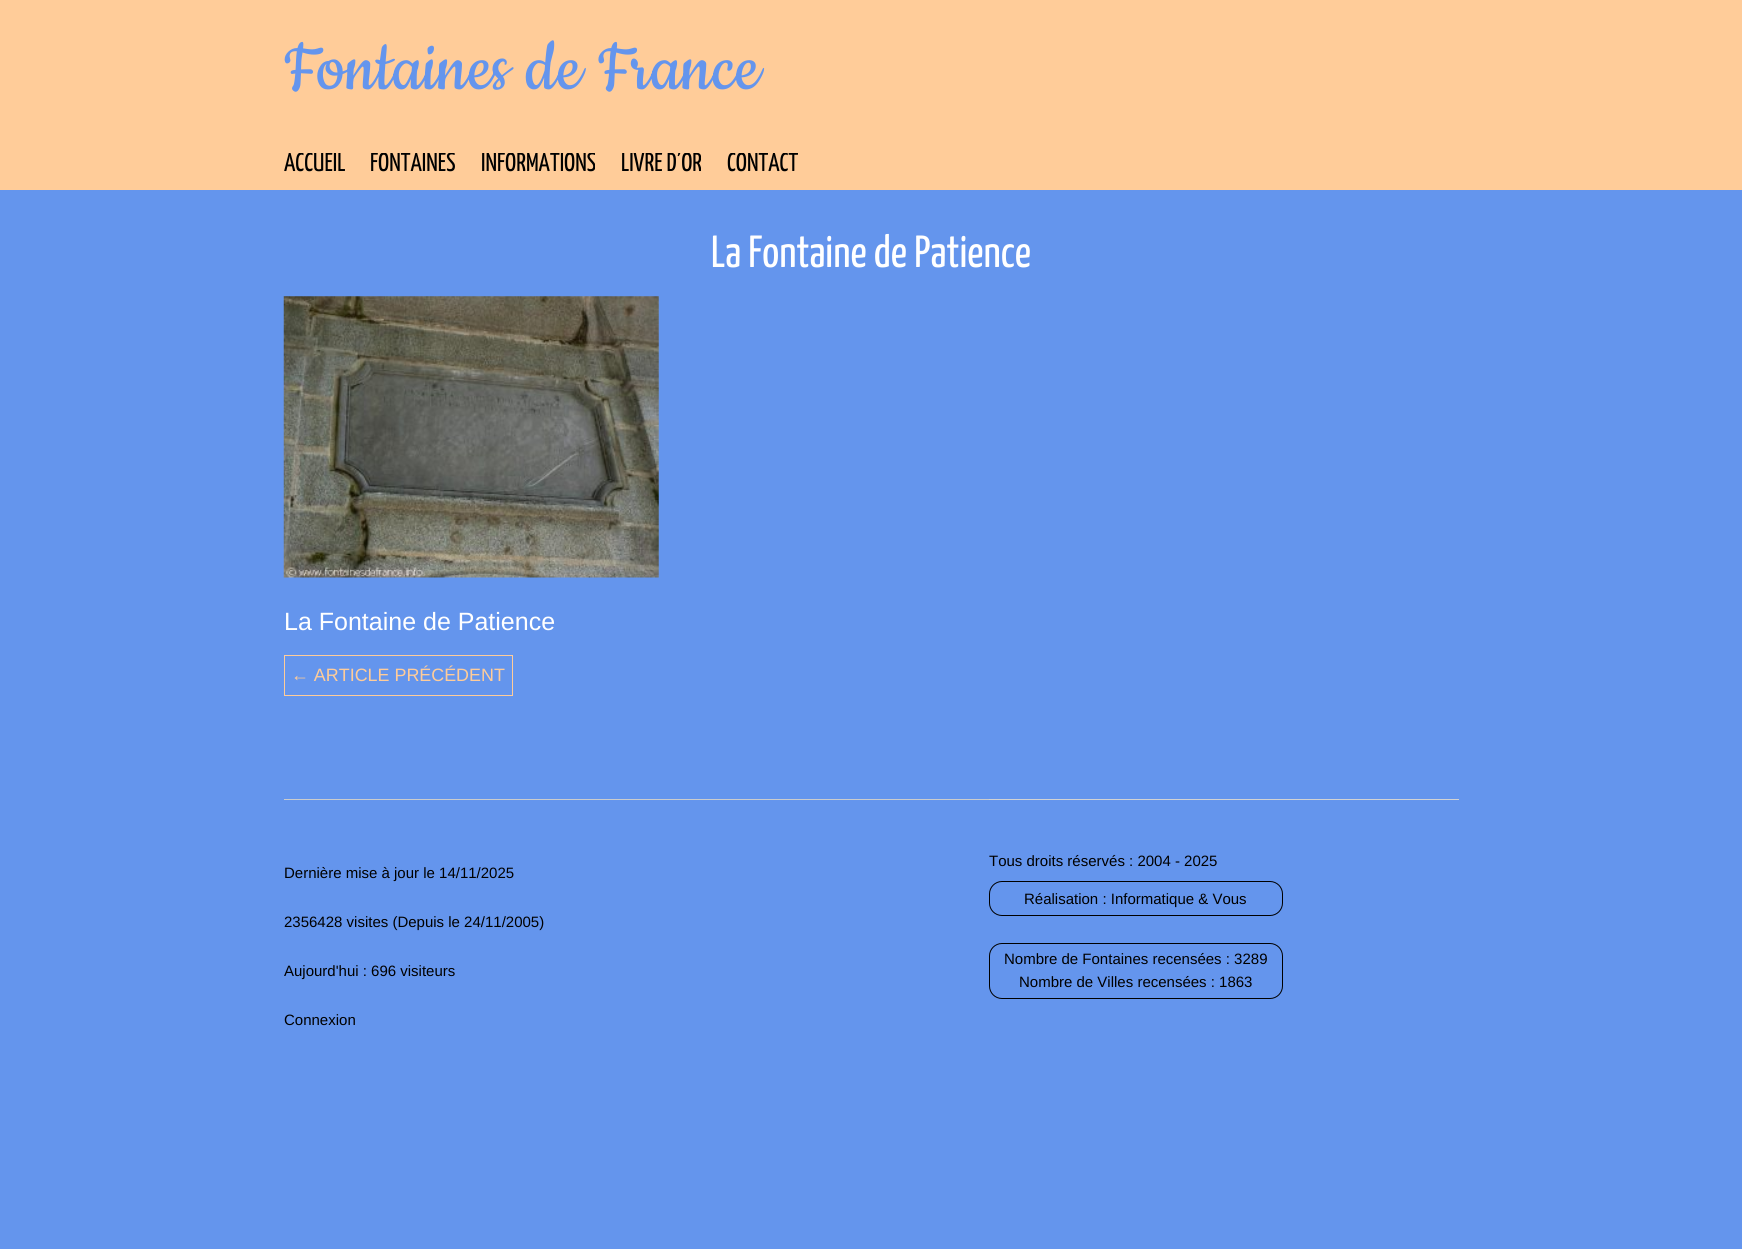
#include <cairo.h>
#include <math.h>
#include <stddef.h>


static void round_rect(cairo_t *cr, double x, double y, double w, double h, double r) {
    cairo_new_sub_path(cr);
    cairo_arc(cr, x + w - r, y + h - r, r, 0, M_PI / 2);
    cairo_arc(cr, x + r, y + h - r, r, M_PI / 2, M_PI);
    cairo_arc(cr, x + r, y + r, r, M_PI, 1.5 * M_PI);
    cairo_arc(cr, x + w - r, y + r, r, 1.5 * M_PI, 2 * M_PI);
    cairo_close_path(cr);
}

static void picture(cairo_t *cr, const char *path, double x, double y, double w, double h) {
    cairo_surface_t *image = cairo_image_surface_create_from_png(path);
    cairo_save(cr);
    cairo_set_source_surface(cr, image, x, y);
    cairo_rectangle(cr, x, y, w, h);
    cairo_fill(cr);
    cairo_restore(cr);
    cairo_surface_destroy(image);
}

int main(void) {
    cairo_surface_t *surface = cairo_image_surface_create(CAIRO_FORMAT_RGB24, 1742, 1249);
    cairo_t *cr = cairo_create(surface);
    cairo_font_options_t *options = cairo_font_options_create();
    cairo_font_options_set_hint_metrics(options, CAIRO_HINT_METRICS_OFF);
    cairo_font_options_set_hint_style(options, CAIRO_HINT_STYLE_NONE);
    cairo_set_font_options(cr, options);
    cairo_set_miter_limit(cr, 4);
    cairo_set_source_rgb(cr, 0.392, 0.584, 0.929);
    cairo_paint(cr);
    cairo_set_source_rgb(cr, 1, 0.8, 0.6);
    cairo_rectangle(cr, 0, 0, 1742, 190);
    cairo_fill(cr);
    cairo_select_font_face(cr, "Cookie", CAIRO_FONT_SLANT_NORMAL, CAIRO_FONT_WEIGHT_NORMAL);
    cairo_set_font_size(cr, 81.25);
    cairo_set_source_rgb(cr, 0.392, 0.584, 0.929);
    cairo_move_to(cr, 284, 89);
    cairo_show_text(cr, "Fontaines de France");
    cairo_save(cr);
    cairo_rectangle(cr, 284, 153, 61, 33);
    cairo_clip(cr);
    cairo_select_font_face(cr, "Yanone Kaffeesatz", CAIRO_FONT_SLANT_NORMAL, CAIRO_FONT_WEIGHT_NORMAL);
    cairo_set_font_size(cr, 26);
    cairo_set_source_rgb(cr, 0, 0, 0);
    cairo_move_to(cr, 284, 171);
    cairo_show_text(cr, "ACCUEIL");
    cairo_restore(cr);
    cairo_save(cr);
    cairo_rectangle(cr, 370, 153, 85, 33);
    cairo_clip(cr);
    cairo_select_font_face(cr, "Yanone Kaffeesatz", CAIRO_FONT_SLANT_NORMAL, CAIRO_FONT_WEIGHT_NORMAL);
    cairo_set_font_size(cr, 26);
    cairo_set_source_rgb(cr, 0, 0, 0);
    cairo_move_to(cr, 370, 171);
    cairo_show_text(cr, "FONTAINES");
    cairo_restore(cr);
    cairo_save(cr);
    cairo_rectangle(cr, 480, 153, 115, 33);
    cairo_clip(cr);
    cairo_select_font_face(cr, "Yanone Kaffeesatz", CAIRO_FONT_SLANT_NORMAL, CAIRO_FONT_WEIGHT_NORMAL);
    cairo_set_font_size(cr, 26);
    cairo_set_source_rgb(cr, 0, 0, 0);
    cairo_move_to(cr, 481, 171);
    cairo_show_text(cr, "INFORMATIONS");
    cairo_restore(cr);
    cairo_save(cr);
    cairo_rectangle(cr, 620, 153, 81, 33);
    cairo_clip(cr);
    cairo_select_font_face(cr, "Yanone Kaffeesatz", CAIRO_FONT_SLANT_NORMAL, CAIRO_FONT_WEIGHT_NORMAL);
    cairo_set_font_size(cr, 26);
    cairo_set_source_rgb(cr, 0, 0, 0);
    cairo_move_to(cr, 621, 171);
    cairo_show_text(cr, "LIVRE D’OR");
    cairo_restore(cr);
    cairo_save(cr);
    cairo_rectangle(cr, 726, 153, 72, 33);
    cairo_clip(cr);
    cairo_select_font_face(cr, "Yanone Kaffeesatz", CAIRO_FONT_SLANT_NORMAL, CAIRO_FONT_WEIGHT_NORMAL);
    cairo_set_font_size(cr, 26);
    cairo_set_source_rgb(cr, 0, 0, 0);
    cairo_move_to(cr, 727, 171);
    cairo_show_text(cr, "CONTACT");
    cairo_restore(cr);
    cairo_select_font_face(cr, "Yanone Kaffeesatz", CAIRO_FONT_SLANT_NORMAL, CAIRO_FONT_WEIGHT_NORMAL);
    cairo_set_font_size(cr, 45);
    cairo_set_source_rgb(cr, 1, 1, 1);
    cairo_move_to(cr, 711, 267);
    cairo_show_text(cr, "La Fontaine de Patience");
    picture(cr, "img1.png", 283, 296, 376, 282);
    cairo_select_font_face(cr, "Liberation Sans", CAIRO_FONT_SLANT_NORMAL, CAIRO_FONT_WEIGHT_NORMAL);
    cairo_set_font_size(cr, 25);
    cairo_move_to(cr, 284, 630);
    cairo_show_text(cr, "La Fontaine de Patience");
    cairo_rectangle(cr, 284.5, 655.5, 228, 40);
    cairo_set_source_rgb(cr, 1, 0.8, 0.6);
    cairo_set_line_width(cr, 1);
    cairo_stroke(cr);
    cairo_set_font_size(cr, 17.9);
    cairo_move_to(cr, 291, 681);
    cairo_show_text(cr, "← ARTICLE PRÉCÉDENT");
    cairo_set_source_rgb(cr, 0.8, 0.8, 0.8);
    cairo_rectangle(cr, 284, 799, 705, 1);
    cairo_fill(cr);
    cairo_set_font_size(cr, 15);
    cairo_set_source_rgb(cr, 0, 0, 0);
    cairo_move_to(cr, 284, 878);
    cairo_show_text(cr, "Dernière mise à jour le 14/11/2025");
    cairo_move_to(cr, 284, 927);
    cairo_show_text(cr, "2356428 visites (Depuis le 24/11/2005)");
    cairo_move_to(cr, 284, 976);
    cairo_show_text(cr, "Aujourd'hui : 696 visiteurs");
    cairo_move_to(cr, 284, 1025);
    cairo_show_text(cr, "Connexion");
    cairo_set_source_rgb(cr, 0.827, 0.827, 0.827);
    cairo_rectangle(cr, 989, 799, 470, 1);
    cairo_fill(cr);
    cairo_set_source_rgb(cr, 0, 0, 0);
    cairo_move_to(cr, 989, 866);
    cairo_show_text(cr, "Tous droits réservés : 2004 - 2025");
    round_rect(cr, 989.5, 881.5, 293, 34, 12.5);
    cairo_stroke(cr);
    cairo_move_to(cr, 1024, 904);
    cairo_show_text(cr, "Réalisation : Informatique & Vous");
    round_rect(cr, 989.5, 943.5, 293, 55, 12.5);
    cairo_stroke(cr);
    cairo_move_to(cr, 1004, 964);
    cairo_show_text(cr, "Nombre de Fontaines recensées : 3289");
    cairo_move_to(cr, 1019, 987);
    cairo_show_text(cr, "Nombre de Villes recensées : 1863");
    cairo_surface_write_to_png(surface, "page.png");
    cairo_font_options_destroy(options);
    cairo_destroy(cr);
    cairo_surface_destroy(surface);
    return 0;
}
